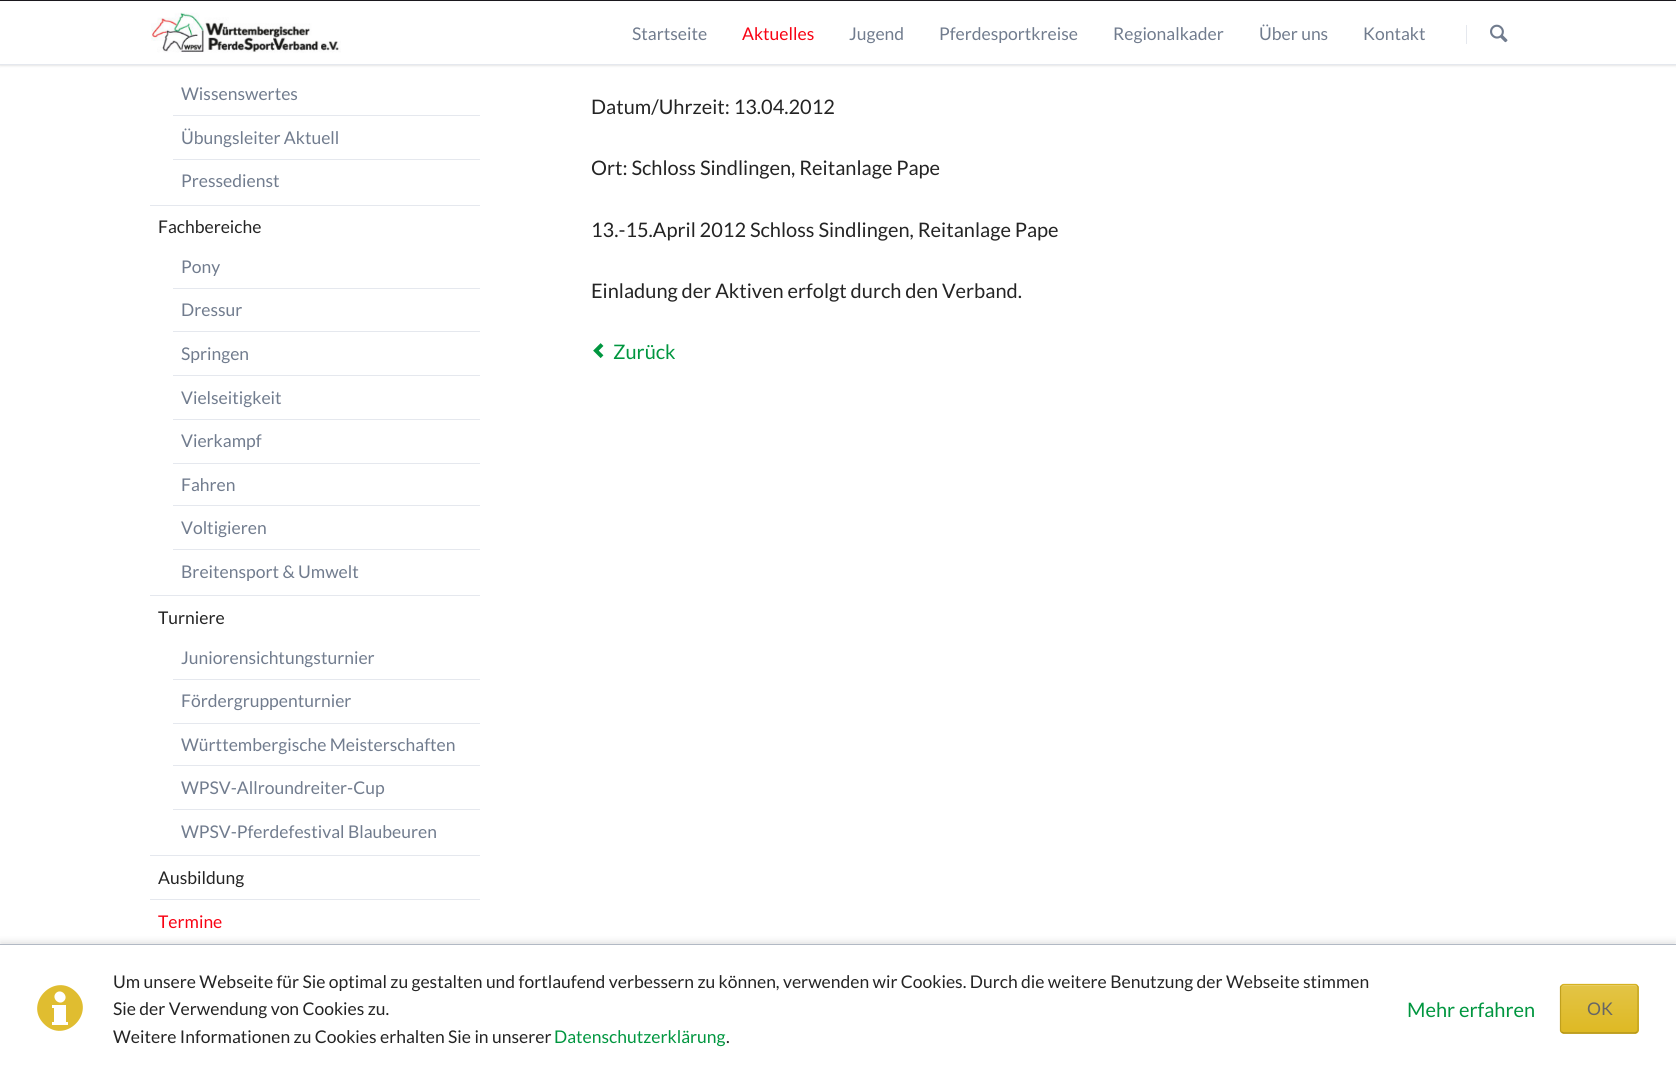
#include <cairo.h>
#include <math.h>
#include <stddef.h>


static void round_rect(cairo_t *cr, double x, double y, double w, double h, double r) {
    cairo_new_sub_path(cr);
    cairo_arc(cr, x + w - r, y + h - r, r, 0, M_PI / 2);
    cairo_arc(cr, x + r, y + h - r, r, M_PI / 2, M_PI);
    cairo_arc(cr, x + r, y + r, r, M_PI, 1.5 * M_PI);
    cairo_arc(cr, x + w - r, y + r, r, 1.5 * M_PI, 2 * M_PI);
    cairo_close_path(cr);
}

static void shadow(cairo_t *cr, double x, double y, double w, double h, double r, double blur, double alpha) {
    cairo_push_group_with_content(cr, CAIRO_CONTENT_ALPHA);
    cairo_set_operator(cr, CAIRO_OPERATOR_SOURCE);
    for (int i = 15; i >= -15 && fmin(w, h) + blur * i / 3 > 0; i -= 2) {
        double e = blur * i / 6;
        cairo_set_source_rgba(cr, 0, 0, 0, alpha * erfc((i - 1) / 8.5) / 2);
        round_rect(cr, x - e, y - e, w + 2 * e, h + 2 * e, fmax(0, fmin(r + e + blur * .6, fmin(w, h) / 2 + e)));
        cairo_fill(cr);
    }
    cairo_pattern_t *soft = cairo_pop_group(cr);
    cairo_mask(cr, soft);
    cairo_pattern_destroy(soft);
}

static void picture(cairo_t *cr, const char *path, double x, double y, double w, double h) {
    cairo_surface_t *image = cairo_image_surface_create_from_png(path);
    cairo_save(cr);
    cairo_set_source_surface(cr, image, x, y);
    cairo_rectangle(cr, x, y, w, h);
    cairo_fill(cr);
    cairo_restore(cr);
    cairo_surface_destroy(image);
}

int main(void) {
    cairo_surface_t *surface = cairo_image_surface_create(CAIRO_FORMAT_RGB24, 1676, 1072);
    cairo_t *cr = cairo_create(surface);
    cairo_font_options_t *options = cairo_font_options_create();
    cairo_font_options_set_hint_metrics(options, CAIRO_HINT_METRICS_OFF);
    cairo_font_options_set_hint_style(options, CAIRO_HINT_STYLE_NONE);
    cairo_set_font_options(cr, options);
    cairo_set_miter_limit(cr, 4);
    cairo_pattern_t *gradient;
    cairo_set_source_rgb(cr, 1, 1, 1);
    cairo_paint(cr);
    cairo_set_source_rgb(cr, 0.102, 0.094, 0.114);
    cairo_rectangle(cr, 0, 0, 1676, 1);
    cairo_fill(cr);
    cairo_set_source_rgb(cr, 0, 0, 0);
    shadow(cr, 0, 3, 1676, 63, 0, 1, 0.1);
    cairo_set_source_rgb(cr, 1, 1, 1);
    cairo_rectangle(cr, 0, 2, 1676, 62);
    cairo_fill(cr);
    cairo_set_source_rgb(cr, 0.898, 0.91, 0.933);
    cairo_rectangle(cr, 0, 64, 1676, 1);
    cairo_fill(cr);
    picture(cr, "img1.png", 151, 12, 190, 41);
    cairo_select_font_face(cr, "Lato", CAIRO_FONT_SLANT_NORMAL, CAIRO_FONT_WEIGHT_NORMAL);
    cairo_set_font_size(cr, 17.5);
    cairo_set_source_rgb(cr, 0.443, 0.486, 0.557);
    cairo_move_to(cr, 632, 40);
    cairo_show_text(cr, "Startseite");
    cairo_set_source_rgb(cr, 0.969, 0.008, 0.078);
    cairo_move_to(cr, 742, 40);
    cairo_show_text(cr, "Aktuelles");
    cairo_set_source_rgb(cr, 0.443, 0.486, 0.557);
    cairo_move_to(cr, 849, 40);
    cairo_show_text(cr, "Jugend");
    cairo_move_to(cr, 939, 40);
    cairo_show_text(cr, "Pferdesportkreise");
    cairo_move_to(cr, 1113, 40);
    cairo_show_text(cr, "Regionalkader");
    cairo_move_to(cr, 1259, 40);
    cairo_show_text(cr, "Über uns");
    cairo_move_to(cr, 1363, 40);
    cairo_show_text(cr, "Kontakt");
    cairo_set_source_rgb(cr, 0.898, 0.91, 0.933);
    cairo_rectangle(cr, 1466, 25, 1, 19);
    cairo_fill(cr);
    picture(cr, "img2.png", 1490, 24, 18, 19);
    cairo_set_source_rgb(cr, 0.443, 0.486, 0.557);
    cairo_move_to(cr, 181, 100);
    cairo_show_text(cr, "Wissenswertes");
    cairo_set_source_rgb(cr, 0.898, 0.91, 0.933);
    cairo_rectangle(cr, 173, 115, 307, 1);
    cairo_fill(cr);
    cairo_set_source_rgb(cr, 0.443, 0.486, 0.557);
    cairo_move_to(cr, 181, 144);
    cairo_show_text(cr, "Übungsleiter Aktuell");
    cairo_set_source_rgb(cr, 0.898, 0.91, 0.933);
    cairo_rectangle(cr, 173, 159, 307, 1);
    cairo_fill(cr);
    cairo_set_source_rgb(cr, 0.443, 0.486, 0.557);
    cairo_move_to(cr, 181, 187);
    cairo_show_text(cr, "Pressedienst");
    cairo_set_source_rgb(cr, 0.898, 0.91, 0.933);
    cairo_rectangle(cr, 150, 205, 330, 1);
    cairo_fill(cr);
    cairo_set_source_rgb(cr, 0.141, 0.141, 0.141);
    cairo_move_to(cr, 158, 233);
    cairo_show_text(cr, "Fachbereiche");
    cairo_set_source_rgb(cr, 0.443, 0.486, 0.557);
    cairo_move_to(cr, 181, 273);
    cairo_show_text(cr, "Pony");
    cairo_set_source_rgb(cr, 0.898, 0.91, 0.933);
    cairo_rectangle(cr, 173, 288, 307, 1);
    cairo_fill(cr);
    cairo_set_source_rgb(cr, 0.443, 0.486, 0.557);
    cairo_move_to(cr, 181, 316);
    cairo_show_text(cr, "Dressur");
    cairo_set_source_rgb(cr, 0.898, 0.91, 0.933);
    cairo_rectangle(cr, 173, 331, 307, 1);
    cairo_fill(cr);
    cairo_set_source_rgb(cr, 0.443, 0.486, 0.557);
    cairo_move_to(cr, 181, 360);
    cairo_show_text(cr, "Springen");
    cairo_set_source_rgb(cr, 0.898, 0.91, 0.933);
    cairo_rectangle(cr, 173, 375, 307, 1);
    cairo_fill(cr);
    cairo_set_source_rgb(cr, 0.443, 0.486, 0.557);
    cairo_move_to(cr, 181, 404);
    cairo_show_text(cr, "Vielseitigkeit");
    cairo_set_source_rgb(cr, 0.898, 0.91, 0.933);
    cairo_rectangle(cr, 173, 419, 307, 1);
    cairo_fill(cr);
    cairo_set_source_rgb(cr, 0.443, 0.486, 0.557);
    cairo_move_to(cr, 181, 447);
    cairo_show_text(cr, "Vierkampf");
    cairo_set_source_rgb(cr, 0.898, 0.91, 0.933);
    cairo_rectangle(cr, 173, 463, 307, 1);
    cairo_fill(cr);
    cairo_set_source_rgb(cr, 0.443, 0.486, 0.557);
    cairo_move_to(cr, 181, 491);
    cairo_show_text(cr, "Fahren");
    cairo_set_source_rgb(cr, 0.898, 0.91, 0.933);
    cairo_rectangle(cr, 173, 505, 307, 1);
    cairo_fill(cr);
    cairo_set_source_rgb(cr, 0.443, 0.486, 0.557);
    cairo_move_to(cr, 181, 534);
    cairo_show_text(cr, "Voltigieren");
    cairo_set_source_rgb(cr, 0.898, 0.91, 0.933);
    cairo_rectangle(cr, 173, 549, 307, 1);
    cairo_fill(cr);
    cairo_set_source_rgb(cr, 0.443, 0.486, 0.557);
    cairo_move_to(cr, 181, 578);
    cairo_show_text(cr, "Breitensport & Umwelt");
    cairo_set_source_rgb(cr, 0.898, 0.91, 0.933);
    cairo_rectangle(cr, 150, 595, 330, 1);
    cairo_fill(cr);
    cairo_set_source_rgb(cr, 0.141, 0.141, 0.141);
    cairo_move_to(cr, 158, 624);
    cairo_show_text(cr, "Turniere");
    cairo_set_source_rgb(cr, 0.443, 0.486, 0.557);
    cairo_move_to(cr, 181, 664);
    cairo_show_text(cr, "Juniorensichtungsturnier");
    cairo_set_source_rgb(cr, 0.898, 0.91, 0.933);
    cairo_rectangle(cr, 173, 679, 307, 1);
    cairo_fill(cr);
    cairo_set_source_rgb(cr, 0.443, 0.486, 0.557);
    cairo_move_to(cr, 181, 707);
    cairo_show_text(cr, "Fördergruppenturnier");
    cairo_set_source_rgb(cr, 0.898, 0.91, 0.933);
    cairo_rectangle(cr, 173, 723, 307, 1);
    cairo_fill(cr);
    cairo_set_source_rgb(cr, 0.443, 0.486, 0.557);
    cairo_move_to(cr, 181, 751);
    cairo_show_text(cr, "Württembergische Meisterschaften");
    cairo_set_source_rgb(cr, 0.898, 0.91, 0.933);
    cairo_rectangle(cr, 173, 765, 307, 1);
    cairo_fill(cr);
    cairo_set_source_rgb(cr, 0.443, 0.486, 0.557);
    cairo_move_to(cr, 181, 794);
    cairo_show_text(cr, "WPSV-Allroundreiter-Cup");
    cairo_set_source_rgb(cr, 0.898, 0.91, 0.933);
    cairo_rectangle(cr, 173, 809, 307, 1);
    cairo_fill(cr);
    cairo_set_source_rgb(cr, 0.443, 0.486, 0.557);
    cairo_move_to(cr, 181, 838);
    cairo_show_text(cr, "WPSV-Pferdefestival Blaubeuren");
    cairo_set_source_rgb(cr, 0.898, 0.91, 0.933);
    cairo_rectangle(cr, 150, 855, 330, 1);
    cairo_fill(cr);
    cairo_set_source_rgb(cr, 0.141, 0.141, 0.141);
    cairo_move_to(cr, 158, 884);
    cairo_show_text(cr, "Ausbildung");
    cairo_set_source_rgb(cr, 0.898, 0.91, 0.933);
    cairo_rectangle(cr, 150, 899, 330, 1);
    cairo_fill(cr);
    cairo_set_source_rgb(cr, 0.969, 0.008, 0.078);
    cairo_move_to(cr, 158, 928);
    cairo_show_text(cr, "Termine");
    cairo_set_font_size(cr, 20);
    cairo_set_source_rgb(cr, 0.141, 0.141, 0.141);
    cairo_move_to(cr, 591, 114);
    cairo_show_text(cr, "Datum/Uhrzeit: 13.04.2012");
    cairo_move_to(cr, 591, 175);
    cairo_show_text(cr, "Ort: Schloss Sindlingen, Reitanlage Pape");
    cairo_move_to(cr, 591, 237);
    cairo_show_text(cr, "13.-15.April 2012 Schloss Sindlingen, Reitanlage Pape");
    cairo_move_to(cr, 591, 298);
    cairo_show_text(cr, "Einladung der Aktiven erfolgt durch den Verband.");
    picture(cr, "img3.png", 593, 343, 11, 15);
    cairo_set_source_rgb(cr, 0, 0.588, 0.247);
    cairo_move_to(cr, 613, 359);
    cairo_show_text(cr, "Zurück");
    cairo_set_source_rgb(cr, 0, 0, 0);
    shadow(cr, 0, 941, 1676, 129, 0, 3, 0.1);
    cairo_set_source_rgb(cr, 1, 1, 1);
    cairo_rectangle(cr, 0, 945, 1676, 127);
    cairo_fill(cr);
    cairo_set_source_rgb(cr, 0.698, 0.725, 0.769);
    cairo_rectangle(cr, 0, 944, 1676, 1);
    cairo_fill(cr);
    cairo_set_source_rgb(cr, 0.878, 0.741, 0.188);
    cairo_new_path(cr);
    cairo_move_to(cr, 76, 992);
    cairo_curve_to(cr, 55, 971, 23, 1003, 44, 1024);
    cairo_curve_to(cr, 65, 1045, 97, 1013, 76, 992);
    cairo_close_path(cr);
    cairo_move_to(cr, 56, 993);
    cairo_curve_to(cr, 61, 988, 69, 996, 64, 1001);
    cairo_curve_to(cr, 59, 1006, 51, 998, 56, 993);
    cairo_close_path(cr);
    cairo_move_to(cr, 68, 1025);
    cairo_line_to(cr, 52, 1025);
    cairo_line_to(cr, 52, 1022);
    cairo_line_to(cr, 54, 1022);
    cairo_line_to(cr, 54, 1008);
    cairo_line_to(cr, 52, 1008);
    cairo_line_to(cr, 52, 1005);
    cairo_line_to(cr, 66, 1005);
    cairo_line_to(cr, 66, 1022);
    cairo_line_to(cr, 68, 1022);
    cairo_close_path(cr);
    cairo_fill(cr);
    cairo_set_font_size(cr, 17.5);
    cairo_set_source_rgb(cr, 0.141, 0.141, 0.141);
    cairo_move_to(cr, 113, 988);
    cairo_show_text(cr, "Um unsere Webseite für Sie optimal zu gestalten und fortlaufend verbessern zu können, verwenden wir Cookies. Durch die weitere Benutzung der Webseite stimmen");
    cairo_move_to(cr, 113, 1015);
    cairo_show_text(cr, "Sie der Verwendung von Cookies zu.");
    cairo_move_to(cr, 113, 1043);
    cairo_show_text(cr, "Weitere Informationen zu Cookies erhalten Sie in unserer");
    cairo_set_source_rgb(cr, 0, 0.588, 0.247);
    cairo_move_to(cr, 554, 1043);
    cairo_show_text(cr, "Datenschutzerklärung");
    cairo_set_source_rgb(cr, 0.141, 0.141, 0.141);
    cairo_move_to(cr, 726, 1043);
    cairo_show_text(cr, ".");
    cairo_set_font_size(cr, 20);
    cairo_set_source_rgb(cr, 0, 0.588, 0.247);
    cairo_move_to(cr, 1407, 1017);
    cairo_show_text(cr, "Mehr erfahren");
    cairo_save(cr);
    round_rect(cr, 1560, 984, 79, 50, 4);
    cairo_clip(cr);
    gradient = cairo_pattern_create_linear(1599, 938, 1599, 985);
    cairo_pattern_add_color_stop_rgba(gradient, 0, 0.89, 0.769, 0.275, 1);
    cairo_pattern_add_color_stop_rgba(gradient, 1, 0.871, 0.725, 0.137, 1);
    cairo_set_source(cr, gradient);
    cairo_pattern_destroy(gradient);
    cairo_rectangle(cr, 1560, 984, 79, 1);
    cairo_fill(cr);
    gradient = cairo_pattern_create_linear(1599, 985, 1599, 1033);
    cairo_pattern_add_color_stop_rgba(gradient, 0, 0.89, 0.769, 0.275, 1);
    cairo_pattern_add_color_stop_rgba(gradient, 1, 0.871, 0.725, 0.137, 1);
    cairo_set_source(cr, gradient);
    cairo_pattern_destroy(gradient);
    cairo_rectangle(cr, 1560, 985, 79, 48);
    cairo_fill(cr);
    gradient = cairo_pattern_create_linear(1599, 1033, 1599, 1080);
    cairo_pattern_add_color_stop_rgba(gradient, 0, 0.89, 0.769, 0.275, 1);
    cairo_pattern_add_color_stop_rgba(gradient, 1, 0.871, 0.725, 0.137, 1);
    cairo_set_source(cr, gradient);
    cairo_pattern_destroy(gradient);
    cairo_rectangle(cr, 1560, 1033, 79, 1);
    cairo_fill(cr);
    cairo_restore(cr);
    cairo_set_source_rgb(cr, 0.914, 0.816, 0.431);
    cairo_new_path(cr);
    cairo_move_to(cr, 1564, 986);
    cairo_line_to(cr, 1635, 986);
    cairo_curve_to(cr, 1636, 986, 1638, 987, 1638, 989);
    cairo_curve_to(cr, 1638, 982, 1629, 985, 1624, 985);
    cairo_line_to(cr, 1576, 985);
    cairo_curve_to(cr, 1570, 985, 1561, 982, 1561, 989);
    cairo_curve_to(cr, 1561, 987, 1562, 986, 1564, 986);
    cairo_close_path(cr);
    cairo_fill(cr);
    cairo_new_path(cr);
    cairo_move_to(cr, 1561.5, 985.5);
    cairo_line_to(cr, 1563.5, 984.5);
    cairo_line_to(cr, 1635.5, 984.5);
    cairo_line_to(cr, 1637, 985.5);
    cairo_set_source_rgb(cr, 0.839, 0.698, 0.125);
    cairo_set_line_width(cr, 1.2);
    cairo_stroke(cr);
    cairo_new_path(cr);
    cairo_move_to(cr, 1637, 985.5);
    cairo_line_to(cr, 1638, 987);
    cairo_line_to(cr, 1638, 1030.5);
    cairo_line_to(cr, 1637, 1032);
    cairo_set_source_rgb(cr, 0.753, 0.627, 0.114);
    cairo_stroke(cr);
    cairo_new_path(cr);
    cairo_move_to(cr, 1637, 1032);
    cairo_line_to(cr, 1635.5, 1033);
    cairo_line_to(cr, 1563.5, 1033);
    cairo_line_to(cr, 1561.5, 1032);
    cairo_set_source_rgb(cr, 0.667, 0.553, 0.098);
    cairo_stroke(cr);
    cairo_new_path(cr);
    cairo_move_to(cr, 1561.5, 1032);
    cairo_line_to(cr, 1560.5, 1030.5);
    cairo_line_to(cr, 1560.5, 987);
    cairo_line_to(cr, 1561.5, 985.5);
    cairo_set_source_rgb(cr, 0.753, 0.627, 0.114);
    cairo_stroke(cr);
    cairo_set_font_size(cr, 17.5);
    cairo_set_source_rgb(cr, 0.4, 0.4, 0.4);
    cairo_move_to(cr, 1587, 1015);
    cairo_show_text(cr, "OK");
    cairo_surface_write_to_png(surface, "page.png");
    cairo_font_options_destroy(options);
    cairo_destroy(cr);
    cairo_surface_destroy(surface);
    return 0;
}
